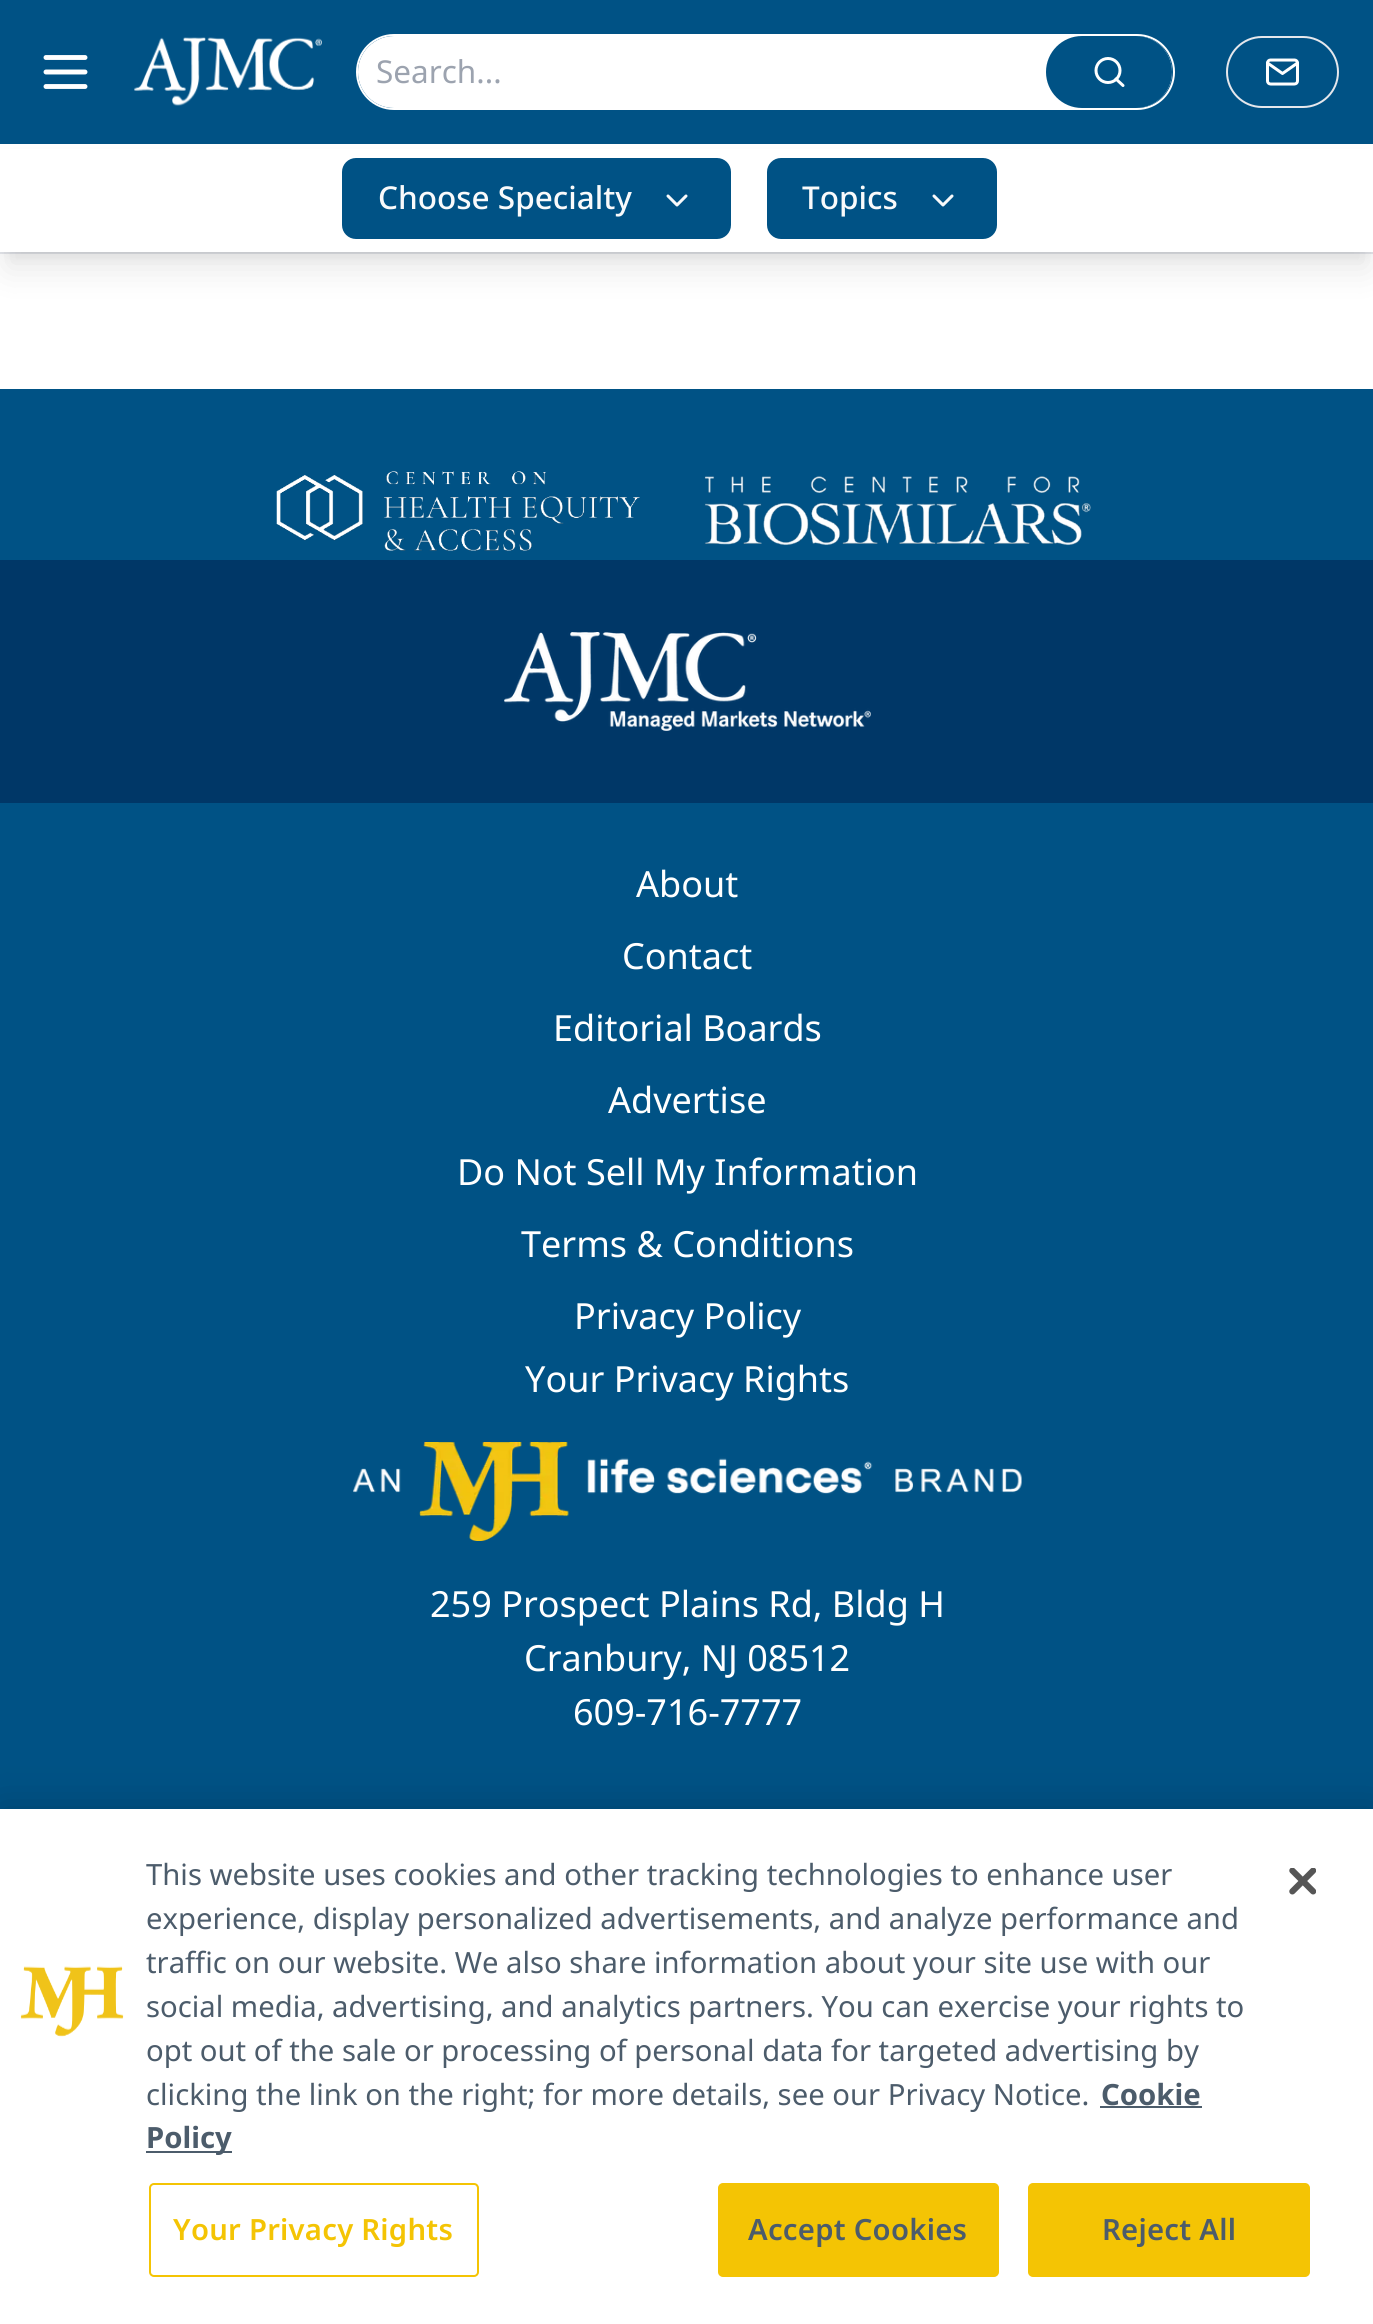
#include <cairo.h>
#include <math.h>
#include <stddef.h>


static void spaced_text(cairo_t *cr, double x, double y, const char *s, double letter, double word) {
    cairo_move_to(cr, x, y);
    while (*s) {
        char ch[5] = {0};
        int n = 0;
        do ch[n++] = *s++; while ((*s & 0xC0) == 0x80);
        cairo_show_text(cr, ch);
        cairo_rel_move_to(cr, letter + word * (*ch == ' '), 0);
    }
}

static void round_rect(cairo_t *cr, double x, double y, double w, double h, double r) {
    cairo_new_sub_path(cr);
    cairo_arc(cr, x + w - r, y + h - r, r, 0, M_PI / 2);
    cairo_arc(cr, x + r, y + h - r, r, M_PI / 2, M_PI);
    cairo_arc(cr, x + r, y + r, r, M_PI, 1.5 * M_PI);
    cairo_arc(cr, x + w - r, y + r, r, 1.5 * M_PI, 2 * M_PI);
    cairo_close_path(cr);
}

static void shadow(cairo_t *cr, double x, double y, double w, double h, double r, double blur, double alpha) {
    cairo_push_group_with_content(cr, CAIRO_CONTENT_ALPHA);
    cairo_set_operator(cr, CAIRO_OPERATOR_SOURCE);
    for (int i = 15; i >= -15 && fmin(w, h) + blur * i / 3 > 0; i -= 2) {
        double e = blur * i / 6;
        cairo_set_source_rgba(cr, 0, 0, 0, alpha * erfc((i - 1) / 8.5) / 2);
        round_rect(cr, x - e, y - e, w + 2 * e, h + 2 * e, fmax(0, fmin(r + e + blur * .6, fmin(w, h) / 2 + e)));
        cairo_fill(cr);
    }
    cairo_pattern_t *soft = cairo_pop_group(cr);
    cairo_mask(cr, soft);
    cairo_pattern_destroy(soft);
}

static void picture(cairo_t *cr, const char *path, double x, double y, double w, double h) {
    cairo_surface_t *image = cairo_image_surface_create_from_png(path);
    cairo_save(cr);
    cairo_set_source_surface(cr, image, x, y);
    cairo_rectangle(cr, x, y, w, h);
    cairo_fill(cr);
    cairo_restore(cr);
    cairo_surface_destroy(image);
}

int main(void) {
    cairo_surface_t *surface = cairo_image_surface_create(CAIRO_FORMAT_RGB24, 1373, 2324);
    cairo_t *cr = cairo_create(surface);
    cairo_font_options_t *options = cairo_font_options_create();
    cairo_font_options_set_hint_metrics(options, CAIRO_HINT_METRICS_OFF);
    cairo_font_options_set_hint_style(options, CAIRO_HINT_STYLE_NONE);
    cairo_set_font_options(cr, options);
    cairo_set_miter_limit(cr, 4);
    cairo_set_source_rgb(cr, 1, 1, 1);
    cairo_paint(cr);
    cairo_set_source_rgb(cr, 0, 0.322, 0.522);
    cairo_rectangle(cr, 0, 0, 1373, 144);
    cairo_fill(cr);
    cairo_set_source_rgb(cr, 0.898, 0.906, 0.922);
    cairo_rectangle(cr, 0, 252, 1373, 2);
    cairo_fill(cr);
    cairo_new_path(cr);
    cairo_move_to(cr, 46, 57.5);
    cairo_line_to(cr, 85, 57.5);
    cairo_move_to(cr, 46, 72);
    cairo_line_to(cr, 85, 72);
    cairo_move_to(cr, 46, 86.5);
    cairo_line_to(cr, 85, 86.5);
    cairo_set_source_rgb(cr, 1, 1, 1);
    cairo_set_line_width(cr, 4.9);
    cairo_set_line_cap(cr, CAIRO_LINE_CAP_ROUND);
    cairo_set_line_join(cr, CAIRO_LINE_JOIN_ROUND);
    cairo_stroke(cr);
    picture(cr, "img1.png", 134, 37, 188, 69);
    round_rect(cr, 357, 35, 817, 74, 37);
    cairo_set_line_width(cr, 2);
    cairo_set_line_cap(cr, CAIRO_LINE_CAP_BUTT);
    cairo_set_line_join(cr, CAIRO_LINE_JOIN_MITER);
    cairo_stroke(cr);
    round_rect(cr, 358, 36, 814, 72, 36);
    cairo_fill(cr);
    cairo_select_font_face(cr, "Noto Sans", CAIRO_FONT_SLANT_NORMAL, CAIRO_FONT_WEIGHT_NORMAL);
    cairo_set_font_size(cr, 31.5);
    cairo_set_source_rgb(cr, 0.612, 0.639, 0.686);
    cairo_move_to(cr, 376, 83);
    cairo_show_text(cr, "Search...");
    cairo_set_source_rgb(cr, 0, 0.322, 0.522);
    round_rect(cr, 1046, 36, 126, 72, 36);
    cairo_fill(cr);
    cairo_arc(cr, 1108, 70.5, 12, 0, 2 * M_PI);
    cairo_set_source_rgb(cr, 1, 1, 1);
    cairo_set_line_width(cr, 3);
    cairo_stroke(cr);
    cairo_new_path(cr);
    cairo_move_to(cr, 1123, 85.5);
    cairo_line_to(cr, 1116, 79);
    cairo_set_line_cap(cr, CAIRO_LINE_CAP_ROUND);
    cairo_set_line_join(cr, CAIRO_LINE_JOIN_ROUND);
    cairo_stroke(cr);
    round_rect(cr, 1227, 37, 111, 70, 35);
    cairo_set_source_rgb(cr, 0.898, 0.906, 0.922);
    cairo_set_line_width(cr, 2);
    cairo_set_line_cap(cr, CAIRO_LINE_CAP_BUTT);
    cairo_set_line_join(cr, CAIRO_LINE_JOIN_MITER);
    cairo_stroke(cr);
    picture(cr, "img2.png", 1266, 58, 33, 28);
    cairo_set_source_rgb(cr, 0, 0, 0);
    shadow(cr, 9, 162, 1357, 90, 0, 7, 0.1);
    shadow(cr, 7, 173, 1361, 95, 0, 17, 0.1);
    cairo_set_source_rgb(cr, 1, 1, 1);
    cairo_rectangle(cr, 0, 149, 1373, 103);
    cairo_fill(cr);
    cairo_set_source_rgb(cr, 0, 0.322, 0.522);
    round_rect(cr, 342, 158, 389, 81, 14);
    cairo_fill(cr);
    cairo_select_font_face(cr, "Noto Sans Medium", CAIRO_FONT_SLANT_NORMAL, CAIRO_FONT_WEIGHT_NORMAL);
    cairo_set_source_rgb(cr, 0.976, 0.98, 0.984);
    cairo_move_to(cr, 378, 209);
    cairo_show_text(cr, "Choose Specialty");
    cairo_new_path(cr);
    cairo_move_to(cr, 668, 196);
    cairo_line_to(cr, 677, 205);
    cairo_line_to(cr, 686, 196);
    cairo_set_line_width(cr, 3);
    cairo_set_line_cap(cr, CAIRO_LINE_CAP_ROUND);
    cairo_set_line_join(cr, CAIRO_LINE_JOIN_ROUND);
    cairo_stroke(cr);
    cairo_set_source_rgb(cr, 0, 0.322, 0.522);
    round_rect(cr, 767, 158, 230, 81, 14);
    cairo_fill(cr);
    cairo_set_source_rgb(cr, 0.976, 0.98, 0.984);
    cairo_move_to(cr, 802, 209);
    cairo_show_text(cr, "Topics");
    cairo_new_path(cr);
    cairo_move_to(cr, 934, 196);
    cairo_line_to(cr, 943, 205);
    cairo_line_to(cr, 952, 196);
    cairo_stroke(cr);
    cairo_set_source_rgb(cr, 0, 0.322, 0.522);
    cairo_rectangle(cr, 0, 389, 1373, 1420);
    cairo_fill(cr);
    picture(cr, "img3.png", 276, 471, 364, 80);
    picture(cr, "img4.png", 704, 476, 387, 70);
    cairo_set_source_rgb(cr, 0, 0.216, 0.404);
    cairo_rectangle(cr, 0, 560, 1373, 243);
    cairo_fill(cr);
    picture(cr, "img5.png", 504, 632, 367, 99);
    cairo_select_font_face(cr, "Noto Sans", CAIRO_FONT_SLANT_NORMAL, CAIRO_FONT_WEIGHT_NORMAL);
    cairo_set_font_size(cr, 36);
    cairo_set_source_rgb(cr, 1, 1, 1);
    cairo_move_to(cr, 636, 897);
    cairo_show_text(cr, "About");
    cairo_move_to(cr, 622, 969);
    cairo_show_text(cr, "Contact");
    cairo_move_to(cr, 553, 1041);
    cairo_show_text(cr, "Editorial Boards");
    cairo_move_to(cr, 608, 1113);
    cairo_show_text(cr, "Advertise");
    cairo_move_to(cr, 457, 1185);
    cairo_show_text(cr, "Do Not Sell My Information");
    cairo_move_to(cr, 521, 1257);
    cairo_show_text(cr, "Terms & Conditions");
    cairo_move_to(cr, 574, 1329);
    cairo_show_text(cr, "Privacy Policy");
    cairo_move_to(cr, 525, 1392);
    cairo_show_text(cr, "Your Privacy Rights");
    picture(cr, "img6.png", 353, 1442, 669, 99);
    cairo_move_to(cr, 430, 1617);
    cairo_show_text(cr, "259 Prospect Plains Rd, Bldg H");
    cairo_move_to(cr, 524, 1671);
    cairo_show_text(cr, "Cranbury, NJ 08512");
    cairo_move_to(cr, 573, 1725);
    cairo_show_text(cr, "609-716-7777");
    cairo_set_source_rgb(cr, 0, 0, 0);
    shadow(cr, 0, 1809, 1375, 515, 0, 20, 0.2);
    cairo_set_source_rgb(cr, 1, 1, 1);
    cairo_rectangle(cr, 0, 1809, 1373, 515);
    cairo_fill(cr);
    picture(cr, "img7.png", 20, 1966, 104, 71);
    cairo_set_font_size(cr, 29.25);
    cairo_set_source_rgb(cr, 0.298, 0.361, 0.42);
    cairo_move_to(cr, 146, 1885);
    cairo_show_text(cr, "This website uses cookies and other tracking technologies to enhance user");
    cairo_move_to(cr, 146, 1929);
    cairo_show_text(cr, "experience, display personalized advertisements, and analyze performance and");
    cairo_move_to(cr, 146, 1973);
    cairo_show_text(cr, "traffic on our website. We also share information about your site use with our");
    cairo_move_to(cr, 146, 2017);
    cairo_show_text(cr, "social media, advertising, and analytics partners. You can exercise your rights to");
    cairo_move_to(cr, 146, 2061);
    cairo_show_text(cr, "opt out of the sale or processing of personal data for targeted advertising by");
    cairo_move_to(cr, 146, 2105);
    cairo_show_text(cr, "clicking the link on the right; for more details, see our Privacy Notice.");
    cairo_select_font_face(cr, "Noto Sans", CAIRO_FONT_SLANT_NORMAL, CAIRO_FONT_WEIGHT_BOLD);
    cairo_move_to(cr, 1101, 2105);
    cairo_show_text(cr, "Cookie");
    cairo_rectangle(cr, 1100, 2106, 102, 2);
    cairo_fill(cr);
    cairo_rectangle(cr, 146, 2151, 86, 2);
    cairo_fill(cr);
    cairo_move_to(cr, 146, 2148);
    cairo_show_text(cr, "Policy");
    round_rect(cr, 150, 2184, 328, 92, 4);
    cairo_set_source_rgb(cr, 0.957, 0.769, 0.016);
    cairo_set_line_width(cr, 2);
    cairo_set_line_cap(cr, CAIRO_LINE_CAP_BUTT);
    cairo_set_line_join(cr, CAIRO_LINE_JOIN_MITER);
    cairo_stroke(cr);
    cairo_select_font_face(cr, "Noto Sans SemiBold", CAIRO_FONT_SLANT_NORMAL, CAIRO_FONT_WEIGHT_NORMAL);
    spaced_text(cr, 173, 2240, "Your Privacy Rights", 0.25, 0);
    round_rect(cr, 719, 2184, 279, 92, 4);
    cairo_fill_preserve(cr);
    cairo_stroke(cr);
    cairo_set_source_rgb(cr, 0.298, 0.361, 0.42);
    spaced_text(cr, 748, 2240, "Accept Cookies", 0.25, 0);
    cairo_set_source_rgb(cr, 0.957, 0.769, 0.016);
    round_rect(cr, 1029, 2184, 280, 92, 4);
    cairo_fill_preserve(cr);
    cairo_stroke(cr);
    cairo_set_source_rgb(cr, 0.298, 0.361, 0.42);
    spaced_text(cr, 1102, 2240, "Reject All", 0.25, 0);
    picture(cr, "img8.png", 1289, 1868, 27, 27);
    cairo_surface_write_to_png(surface, "page.png");
    cairo_font_options_destroy(options);
    cairo_destroy(cr);
    cairo_surface_destroy(surface);
    return 0;
}
